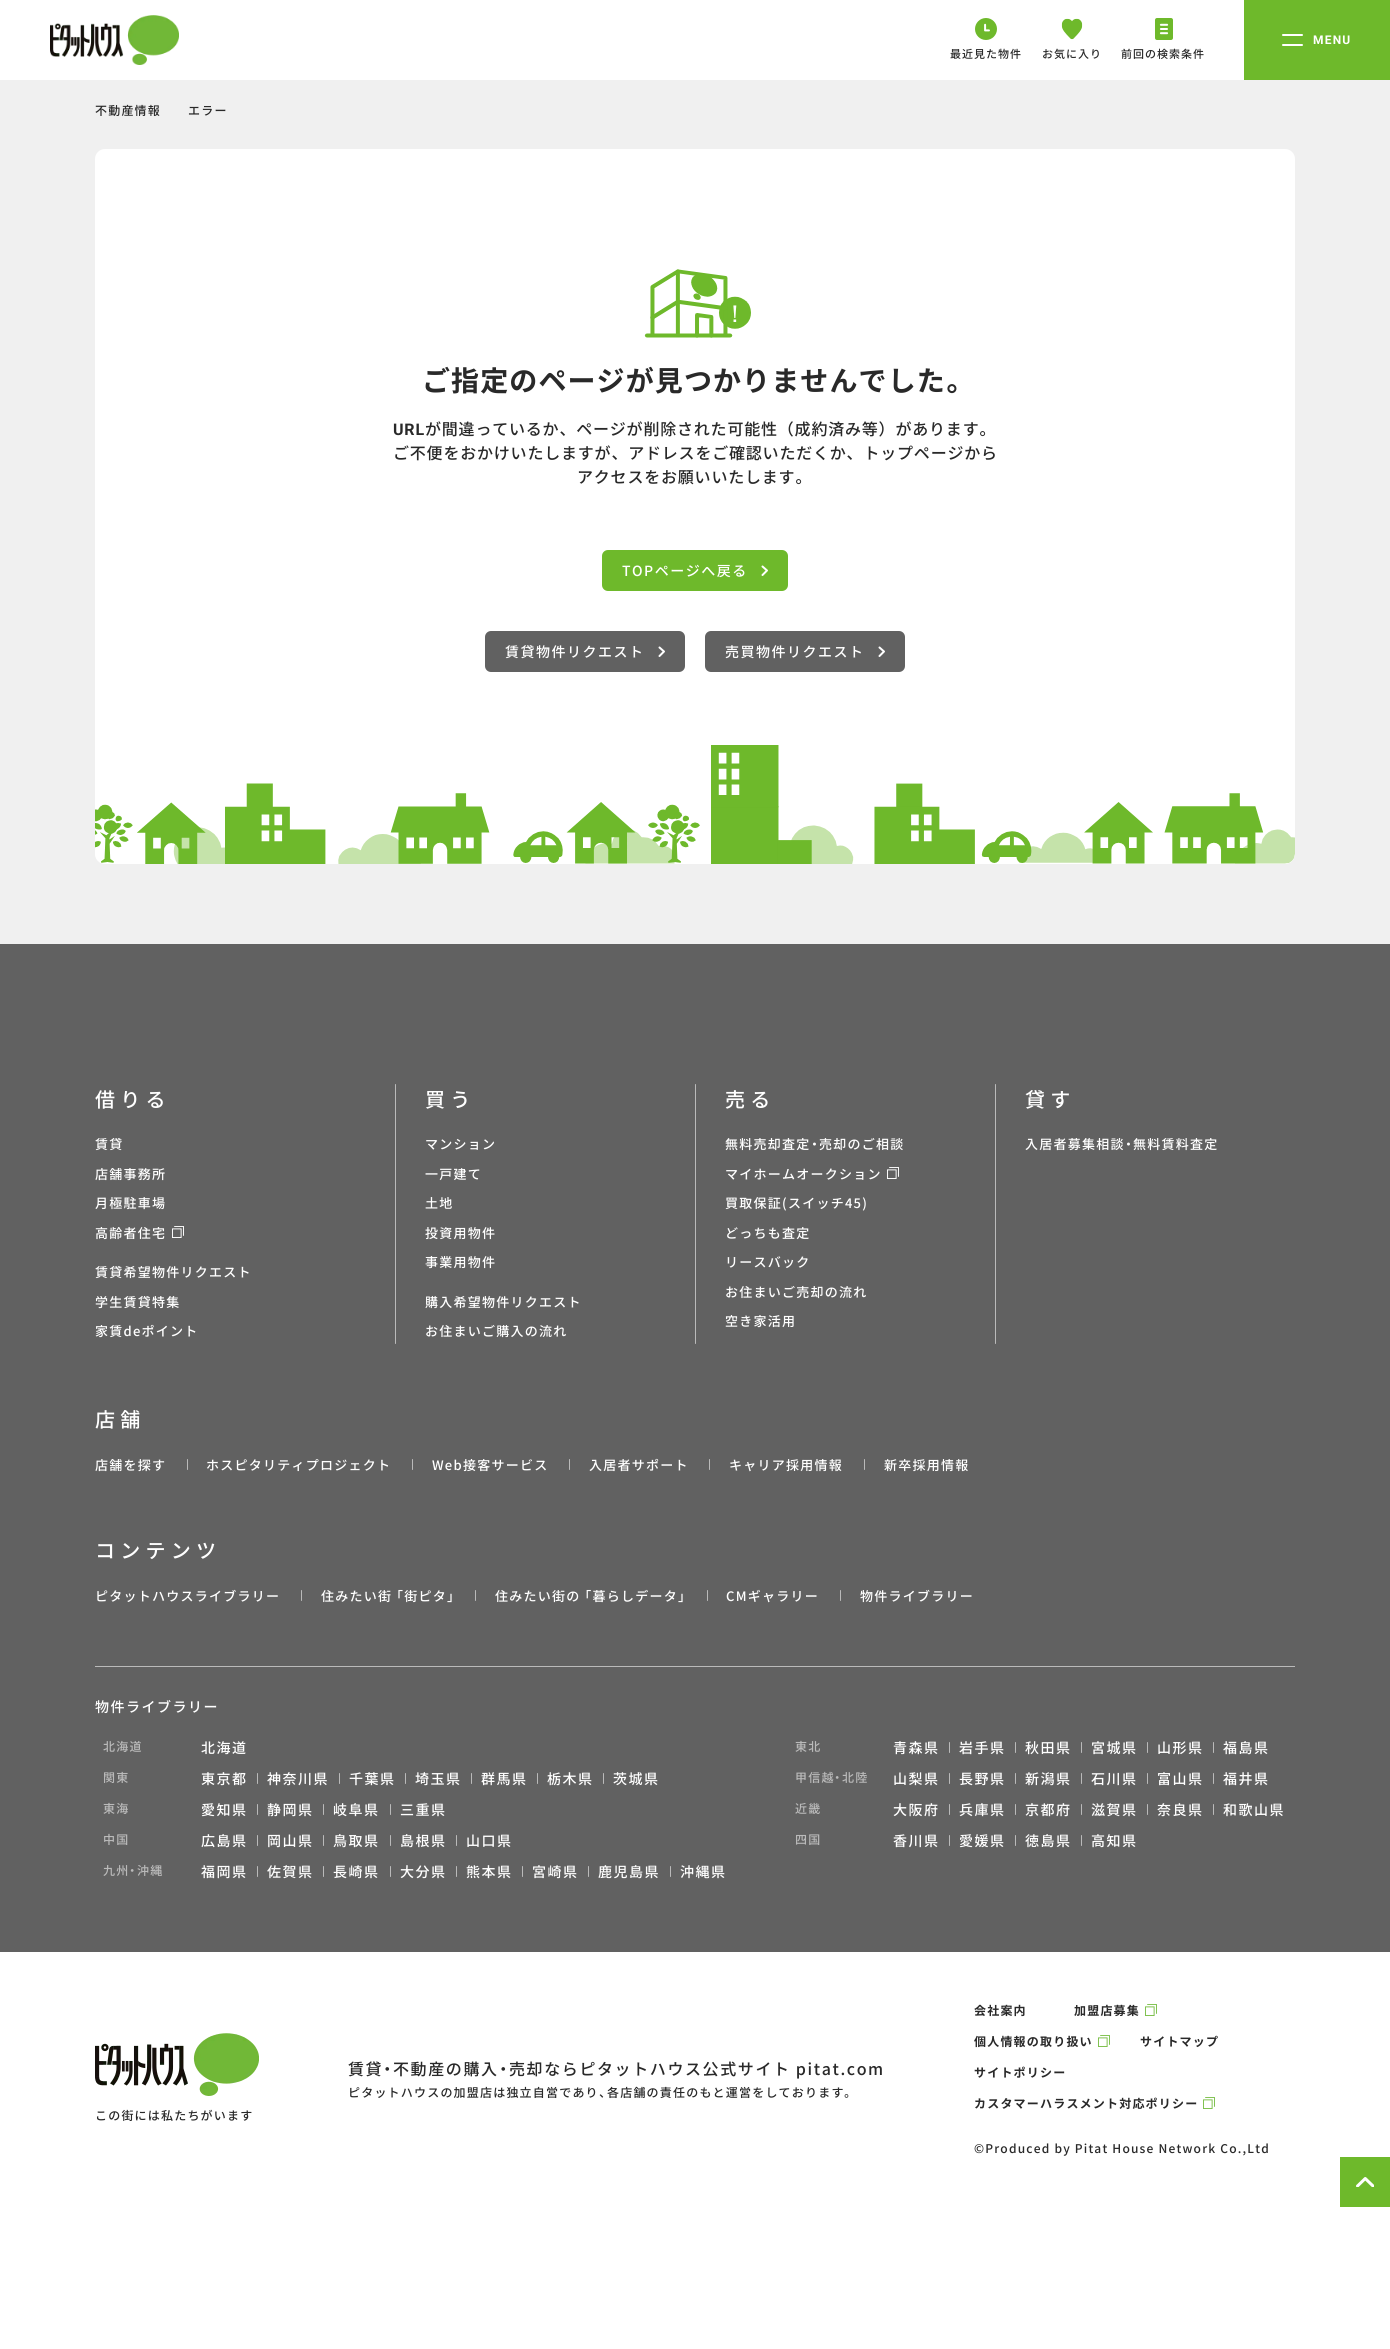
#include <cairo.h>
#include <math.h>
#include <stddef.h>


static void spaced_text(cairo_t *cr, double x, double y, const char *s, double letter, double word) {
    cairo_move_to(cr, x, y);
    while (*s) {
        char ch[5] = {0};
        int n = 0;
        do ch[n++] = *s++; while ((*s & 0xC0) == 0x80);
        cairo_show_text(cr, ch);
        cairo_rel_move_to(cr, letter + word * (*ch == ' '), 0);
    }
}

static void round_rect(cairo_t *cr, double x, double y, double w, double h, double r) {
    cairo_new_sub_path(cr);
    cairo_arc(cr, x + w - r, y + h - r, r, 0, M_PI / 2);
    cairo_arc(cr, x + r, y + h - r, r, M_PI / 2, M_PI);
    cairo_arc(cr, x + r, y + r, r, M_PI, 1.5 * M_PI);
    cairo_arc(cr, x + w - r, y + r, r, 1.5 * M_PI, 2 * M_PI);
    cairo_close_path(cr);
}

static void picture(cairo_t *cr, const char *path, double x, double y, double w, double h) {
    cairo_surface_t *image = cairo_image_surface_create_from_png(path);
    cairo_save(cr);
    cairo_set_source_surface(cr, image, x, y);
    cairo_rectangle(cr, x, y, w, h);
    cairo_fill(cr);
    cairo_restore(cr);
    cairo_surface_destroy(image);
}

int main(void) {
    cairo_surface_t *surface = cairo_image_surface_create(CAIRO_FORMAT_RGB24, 1390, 2349);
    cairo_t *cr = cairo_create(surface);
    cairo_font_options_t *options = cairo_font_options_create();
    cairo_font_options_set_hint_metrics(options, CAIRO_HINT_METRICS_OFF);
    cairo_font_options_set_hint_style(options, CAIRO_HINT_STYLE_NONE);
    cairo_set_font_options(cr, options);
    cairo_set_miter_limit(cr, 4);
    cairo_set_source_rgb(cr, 1, 1, 1);
    cairo_paint(cr);
    picture(cr, "img1.png", 50, 15, 129, 50);
    cairo_set_source_rgb(cr, 0.431, 0.725, 0.169);
    cairo_rectangle(cr, 1244, 0, 146, 80);
    cairo_fill(cr);
    cairo_set_source_rgb(cr, 1, 1, 1);
    round_rect(cr, 1282, 34, 21, 2, 1);
    cairo_fill(cr);
    round_rect(cr, 1282, 44, 21, 2, 1);
    cairo_fill(cr);
    cairo_select_font_face(cr, "Roboto", CAIRO_FONT_SLANT_NORMAL, CAIRO_FONT_WEIGHT_BOLD);
    cairo_set_font_size(cr, 12);
    spaced_text(cr, 1313, 44, "MENU", 1.2, 0);
    picture(cr, "img2.png", 975, 18, 22, 22);
    cairo_select_font_face(cr, "Noto Sans JP Medium", CAIRO_FONT_SLANT_NORMAL, CAIRO_FONT_WEIGHT_NORMAL);
    cairo_set_font_size(cr, 11);
    cairo_set_source_rgb(cr, 0.161, 0.161, 0.161);
    spaced_text(cr, 950, 58, "最近見た物件", 1, 0);
    picture(cr, "img3.png", 1061, 18, 22, 22);
    spaced_text(cr, 1042, 58, "お気に入り", 1, 0);
    picture(cr, "img4.png", 1155, 18, 18, 22);
    spaced_text(cr, 1121, 58, "前回の検索条件", 1, 0);
    cairo_set_source_rgb(cr, 0.941, 0.941, 0.941);
    cairo_rectangle(cr, 0, 80, 1390, 864);
    cairo_fill(cr);
    cairo_set_font_size(cr, 12);
    cairo_set_source_rgb(cr, 0.161, 0.161, 0.161);
    spaced_text(cr, 95, 115, "不動産情報", 1.2, 0);
    spaced_text(cr, 188, 115, "エラー", 1.2, 0);
    cairo_set_source_rgb(cr, 1, 1, 1);
    round_rect(cr, 95, 149, 1200, 715, 10);
    cairo_fill(cr);
    picture(cr, "img5.png", 95, 745, 1200, 119);
    picture(cr, "img6.png", 644, 269, 107, 69);
    cairo_select_font_face(cr, "Noto Sans JP", CAIRO_FONT_SLANT_NORMAL, CAIRO_FONT_WEIGHT_BOLD);
    cairo_set_font_size(cr, 28);
    cairo_set_source_rgb(cr, 0.161, 0.161, 0.161);
    spaced_text(cr, 422, 391, "ご指定のページが見つかりませんでした", 1.1, 0);
    cairo_select_font_face(cr, "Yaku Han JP", CAIRO_FONT_SLANT_NORMAL, CAIRO_FONT_WEIGHT_BOLD);
    spaced_text(cr, 946, 391, "。", 1.1, 0);
    cairo_select_font_face(cr, "Roboto", CAIRO_FONT_SLANT_NORMAL, CAIRO_FONT_WEIGHT_BOLD);
    cairo_set_font_size(cr, 16);
    spaced_text(cr, 393, 435, "URL", 0.8, 0);
    cairo_select_font_face(cr, "Noto Sans JP Medium", CAIRO_FONT_SLANT_NORMAL, CAIRO_FONT_WEIGHT_NORMAL);
    spaced_text(cr, 425, 435, "が間違っているか、ページが削除された可能性（成約済み等）があります。", 0.8, 0);
    spaced_text(cr, 393, 459, "ご不便をおかけいたしますが、アドレスをご確認いただくか、トップページから", 0.8, 0);
    spaced_text(cr, 577, 483, "アクセスをお願いいたします。", 0.8, 0);
    cairo_set_source_rgb(cr, 0.431, 0.725, 0.169);
    round_rect(cr, 602, 550, 186, 41, 6);
    cairo_fill(cr);
    cairo_set_font_size(cr, 14);
    cairo_set_source_rgb(cr, 1, 1, 1);
    spaced_text(cr, 622, 576, "TOPページへ戻る", 1.5, 0);
    cairo_new_path(cr);
    cairo_move_to(cr, 762.5, 575);
    cairo_line_to(cr, 767, 570.5);
    cairo_line_to(cr, 762.5, 566.5);
    cairo_set_line_cap(cr, CAIRO_LINE_CAP_ROUND);
    cairo_set_line_join(cr, CAIRO_LINE_JOIN_ROUND);
    cairo_stroke(cr);
    cairo_set_source_rgb(cr, 0.38, 0.38, 0.38);
    round_rect(cr, 485, 631, 200, 41, 6);
    cairo_fill(cr);
    cairo_set_source_rgb(cr, 1, 1, 1);
    spaced_text(cr, 505, 657, "賃貸物件リクエスト", 1.5, 0);
    cairo_new_path(cr);
    cairo_move_to(cr, 659.5, 656);
    cairo_line_to(cr, 664, 651.5);
    cairo_line_to(cr, 659.5, 647.5);
    cairo_stroke(cr);
    cairo_set_source_rgb(cr, 0.38, 0.38, 0.38);
    round_rect(cr, 705, 631, 200, 41, 6);
    cairo_fill(cr);
    cairo_set_source_rgb(cr, 1, 1, 1);
    spaced_text(cr, 725, 657, "売買物件リクエスト", 1.5, 0);
    cairo_new_path(cr);
    cairo_move_to(cr, 879.5, 656);
    cairo_line_to(cr, 884, 651.5);
    cairo_line_to(cr, 879.5, 647.5);
    cairo_stroke(cr);
    cairo_set_source_rgb(cr, 0.38, 0.38, 0.38);
    cairo_rectangle(cr, 0, 944, 1390, 1008);
    cairo_fill(cr);
    cairo_set_font_size(cr, 20);
    cairo_set_source_rgb(cr, 1, 1, 1);
    spaced_text(cr, 95, 1107, "借りる", 5.25, 0);
    cairo_set_font_size(cr, 13);
    spaced_text(cr, 95, 1149, "賃貸", 1.25, 0);
    spaced_text(cr, 95, 1179, "店舗事務所", 1.25, 0);
    spaced_text(cr, 95, 1208, "月極駐車場", 1.25, 0);
    picture(cr, "img7.png", 172, 1226, 12, 12);
    spaced_text(cr, 95, 1238, "高齢者住宅", 1.25, 0);
    spaced_text(cr, 95, 1277, "賃貸希望物件リクエスト", 1.25, 0);
    spaced_text(cr, 95, 1307, "学生賃貸特集", 1.25, 0);
    spaced_text(cr, 95, 1336, "家賃deポイント", 1.25, 0);
    cairo_set_source_rgb(cr, 0.729, 0.729, 0.729);
    round_rect(cr, 395, 1084, 1, 260, 0.5);
    cairo_fill(cr);
    cairo_set_font_size(cr, 20);
    cairo_set_source_rgb(cr, 1, 1, 1);
    spaced_text(cr, 425, 1107, "買う", 5.25, 0);
    cairo_set_font_size(cr, 13);
    spaced_text(cr, 425, 1149, "マンション", 1.25, 0);
    spaced_text(cr, 425, 1179, "一戸建て", 1.25, 0);
    spaced_text(cr, 425, 1208, "土地", 1.25, 0);
    spaced_text(cr, 425, 1238, "投資用物件", 1.25, 0);
    spaced_text(cr, 425, 1267, "事業用物件", 1.25, 0);
    spaced_text(cr, 425, 1307, "購入希望物件リクエスト", 1.25, 0);
    spaced_text(cr, 425, 1336, "お住まいご購入の流れ", 1.25, 0);
    cairo_set_source_rgb(cr, 0.729, 0.729, 0.729);
    round_rect(cr, 695, 1084, 1, 260, 0.5);
    cairo_fill(cr);
    cairo_set_font_size(cr, 20);
    cairo_set_source_rgb(cr, 1, 1, 1);
    spaced_text(cr, 725, 1107, "売る", 5.25, 0);
    cairo_set_font_size(cr, 13);
    spaced_text(cr, 725, 1149, "無料売却査定", 1.25, 0);
    cairo_select_font_face(cr, "Yaku Han JP Medium", CAIRO_FONT_SLANT_NORMAL, CAIRO_FONT_WEIGHT_NORMAL);
    spaced_text(cr, 811, 1149, "・", 1.25, 0);
    cairo_select_font_face(cr, "Noto Sans JP Medium", CAIRO_FONT_SLANT_NORMAL, CAIRO_FONT_WEIGHT_NORMAL);
    spaced_text(cr, 819, 1149, "売却のご相談", 1.25, 0);
    picture(cr, "img7.png", 887, 1167, 12, 12);
    spaced_text(cr, 725, 1179, "マイホームオークション", 1.25, 0);
    spaced_text(cr, 725, 1208, "買取保証(スイッチ45)", 1.25, 0);
    spaced_text(cr, 725, 1238, "どっちも査定", 1.25, 0);
    spaced_text(cr, 725, 1267, "リースバック", 1.25, 0);
    spaced_text(cr, 725, 1297, "お住まいご売却の流れ", 1.25, 0);
    spaced_text(cr, 725, 1326, "空き家活用", 1.25, 0);
    cairo_set_source_rgb(cr, 0.729, 0.729, 0.729);
    round_rect(cr, 995, 1084, 1, 260, 0.5);
    cairo_fill(cr);
    cairo_set_font_size(cr, 20);
    cairo_set_source_rgb(cr, 1, 1, 1);
    spaced_text(cr, 1025, 1107, "貸す", 5.25, 0);
    cairo_set_font_size(cr, 13);
    spaced_text(cr, 1025, 1149, "入居者募集相談", 1.25, 0);
    cairo_select_font_face(cr, "Yaku Han JP Medium", CAIRO_FONT_SLANT_NORMAL, CAIRO_FONT_WEIGHT_NORMAL);
    spaced_text(cr, 1125, 1149, "・", 1.25, 0);
    cairo_select_font_face(cr, "Noto Sans JP Medium", CAIRO_FONT_SLANT_NORMAL, CAIRO_FONT_WEIGHT_NORMAL);
    spaced_text(cr, 1133, 1149, "無料賃料査定", 1.25, 0);
    cairo_set_font_size(cr, 20);
    spaced_text(cr, 95, 1427, "店舗", 5.25, 0);
    cairo_set_font_size(cr, 13);
    spaced_text(cr, 95, 1470, "店舗を探す", 1.25, 0);
    cairo_set_source_rgb(cr, 0.729, 0.729, 0.729);
    round_rect(cr, 187, 1459, 1, 11, 0.5);
    cairo_fill(cr);
    cairo_set_source_rgb(cr, 1, 1, 1);
    spaced_text(cr, 206, 1470, "ホスピタリティプロジェクト", 1.25, 0);
    cairo_set_source_rgb(cr, 0.729, 0.729, 0.729);
    round_rect(cr, 412, 1459, 1, 11, 0.5);
    cairo_fill(cr);
    cairo_set_source_rgb(cr, 1, 1, 1);
    spaced_text(cr, 432, 1470, "Web接客サービス", 1.25, 0);
    cairo_set_source_rgb(cr, 0.729, 0.729, 0.729);
    round_rect(cr, 569, 1459, 1, 11, 0.5);
    cairo_fill(cr);
    cairo_set_source_rgb(cr, 1, 1, 1);
    spaced_text(cr, 589, 1470, "入居者サポート", 1.25, 0);
    cairo_set_source_rgb(cr, 0.729, 0.729, 0.729);
    round_rect(cr, 709, 1459, 1, 11, 0.5);
    cairo_fill(cr);
    cairo_set_source_rgb(cr, 1, 1, 1);
    spaced_text(cr, 729, 1470, "キャリア採用情報", 1.25, 0);
    cairo_set_source_rgb(cr, 0.729, 0.729, 0.729);
    round_rect(cr, 864, 1459, 1, 11, 0.5);
    cairo_fill(cr);
    cairo_set_source_rgb(cr, 1, 1, 1);
    spaced_text(cr, 884, 1470, "新卒採用情報", 1.25, 0);
    cairo_set_font_size(cr, 20);
    spaced_text(cr, 95, 1558, "コンテンツ", 5.25, 0);
    cairo_set_font_size(cr, 13);
    spaced_text(cr, 95, 1601, "ピタットハウスライブラリー", 1.25, 0);
    cairo_set_source_rgb(cr, 0.729, 0.729, 0.729);
    round_rect(cr, 301, 1590, 1, 11, 0.5);
    cairo_fill(cr);
    cairo_set_source_rgb(cr, 1, 1, 1);
    spaced_text(cr, 321, 1601, "住みたい街 ｢街ピタ｣", 1.25, 0);
    cairo_set_source_rgb(cr, 0.729, 0.729, 0.729);
    round_rect(cr, 475, 1590, 1, 11, 0.5);
    cairo_fill(cr);
    cairo_set_source_rgb(cr, 1, 1, 1);
    spaced_text(cr, 495, 1601, "住みたい街の ｢暮らしデータ｣", 1.25, 0);
    cairo_set_source_rgb(cr, 0.729, 0.729, 0.729);
    round_rect(cr, 707, 1590, 1, 11, 0.5);
    cairo_fill(cr);
    cairo_set_source_rgb(cr, 1, 1, 1);
    spaced_text(cr, 726, 1601, "CMギャラリー", 1.25, 0);
    cairo_set_source_rgb(cr, 0.729, 0.729, 0.729);
    round_rect(cr, 840, 1590, 1, 11, 0.5);
    cairo_fill(cr);
    cairo_set_source_rgb(cr, 1, 1, 1);
    spaced_text(cr, 860, 1601, "物件ライブラリー", 1.25, 0);
    cairo_set_source_rgb(cr, 0.729, 0.729, 0.729);
    cairo_rectangle(cr, 95, 1666, 1200, 1);
    cairo_fill(cr);
    cairo_set_font_size(cr, 14);
    cairo_set_source_rgb(cr, 1, 1, 1);
    spaced_text(cr, 95, 1712, "物件ライブラリー", 1.5, 0);
    cairo_set_font_size(cr, 12);
    cairo_set_source_rgb(cr, 0.729, 0.729, 0.729);
    spaced_text(cr, 103, 1751, "北海道", 1.2, 0);
    cairo_set_font_size(cr, 14);
    cairo_set_source_rgb(cr, 1, 1, 1);
    spaced_text(cr, 201, 1753, "北海道", 1.5, 0);
    cairo_set_font_size(cr, 12);
    cairo_set_source_rgb(cr, 0.729, 0.729, 0.729);
    spaced_text(cr, 795, 1751, "東北", 1.2, 0);
    cairo_set_font_size(cr, 14);
    cairo_set_source_rgb(cr, 1, 1, 1);
    spaced_text(cr, 893, 1753, "青森県", 1.5, 0);
    cairo_set_source_rgb(cr, 0.729, 0.729, 0.729);
    round_rect(cr, 949, 1742, 1, 11, 0.5);
    cairo_fill(cr);
    cairo_set_source_rgb(cr, 1, 1, 1);
    spaced_text(cr, 959, 1753, "岩手県", 1.5, 0);
    cairo_set_source_rgb(cr, 0.729, 0.729, 0.729);
    round_rect(cr, 1015, 1742, 1, 11, 0.5);
    cairo_fill(cr);
    cairo_set_source_rgb(cr, 1, 1, 1);
    spaced_text(cr, 1025, 1753, "秋田県", 1.5, 0);
    cairo_set_source_rgb(cr, 0.729, 0.729, 0.729);
    round_rect(cr, 1081, 1742, 1, 11, 0.5);
    cairo_fill(cr);
    cairo_set_source_rgb(cr, 1, 1, 1);
    spaced_text(cr, 1091, 1753, "宮城県", 1.5, 0);
    cairo_set_source_rgb(cr, 0.729, 0.729, 0.729);
    round_rect(cr, 1147, 1742, 1, 11, 0.5);
    cairo_fill(cr);
    cairo_set_source_rgb(cr, 1, 1, 1);
    spaced_text(cr, 1157, 1753, "山形県", 1.5, 0);
    cairo_set_source_rgb(cr, 0.729, 0.729, 0.729);
    round_rect(cr, 1213, 1742, 1, 11, 0.5);
    cairo_fill(cr);
    cairo_set_source_rgb(cr, 1, 1, 1);
    spaced_text(cr, 1223, 1753, "福島県", 1.5, 0);
    cairo_set_font_size(cr, 12);
    cairo_set_source_rgb(cr, 0.729, 0.729, 0.729);
    spaced_text(cr, 103, 1782, "関東", 1.2, 0);
    cairo_set_font_size(cr, 14);
    cairo_set_source_rgb(cr, 1, 1, 1);
    spaced_text(cr, 201, 1784, "東京都", 1.5, 0);
    cairo_set_source_rgb(cr, 0.729, 0.729, 0.729);
    round_rect(cr, 257, 1773, 1, 11, 0.5);
    cairo_fill(cr);
    cairo_set_source_rgb(cr, 1, 1, 1);
    spaced_text(cr, 267, 1784, "神奈川県", 1.5, 0);
    cairo_set_source_rgb(cr, 0.729, 0.729, 0.729);
    round_rect(cr, 339, 1773, 1, 11, 0.5);
    cairo_fill(cr);
    cairo_set_source_rgb(cr, 1, 1, 1);
    spaced_text(cr, 349, 1784, "千葉県", 1.5, 0);
    cairo_set_source_rgb(cr, 0.729, 0.729, 0.729);
    round_rect(cr, 405, 1773, 1, 11, 0.5);
    cairo_fill(cr);
    cairo_set_source_rgb(cr, 1, 1, 1);
    spaced_text(cr, 415, 1784, "埼玉県", 1.5, 0);
    cairo_set_source_rgb(cr, 0.729, 0.729, 0.729);
    round_rect(cr, 471, 1773, 1, 11, 0.5);
    cairo_fill(cr);
    cairo_set_source_rgb(cr, 1, 1, 1);
    spaced_text(cr, 481, 1784, "群馬県", 1.5, 0);
    cairo_set_source_rgb(cr, 0.729, 0.729, 0.729);
    round_rect(cr, 537, 1773, 1, 11, 0.5);
    cairo_fill(cr);
    cairo_set_source_rgb(cr, 1, 1, 1);
    spaced_text(cr, 547, 1784, "栃木県", 1.5, 0);
    cairo_set_source_rgb(cr, 0.729, 0.729, 0.729);
    round_rect(cr, 603, 1773, 1, 11, 0.5);
    cairo_fill(cr);
    cairo_set_source_rgb(cr, 1, 1, 1);
    spaced_text(cr, 613, 1784, "茨城県", 1.5, 0);
    cairo_set_font_size(cr, 12);
    cairo_set_source_rgb(cr, 0.729, 0.729, 0.729);
    spaced_text(cr, 795, 1782, "甲信越", 1.2, 0);
    cairo_select_font_face(cr, "Yaku Han JP Medium", CAIRO_FONT_SLANT_NORMAL, CAIRO_FONT_WEIGHT_NORMAL);
    spaced_text(cr, 834, 1782, "・", 1.2, 0);
    cairo_select_font_face(cr, "Noto Sans JP Medium", CAIRO_FONT_SLANT_NORMAL, CAIRO_FONT_WEIGHT_NORMAL);
    spaced_text(cr, 842, 1782, "北陸", 1.2, 0);
    cairo_set_font_size(cr, 14);
    cairo_set_source_rgb(cr, 1, 1, 1);
    spaced_text(cr, 893, 1784, "山梨県", 1.5, 0);
    cairo_set_source_rgb(cr, 0.729, 0.729, 0.729);
    round_rect(cr, 949, 1773, 1, 11, 0.5);
    cairo_fill(cr);
    cairo_set_source_rgb(cr, 1, 1, 1);
    spaced_text(cr, 959, 1784, "長野県", 1.5, 0);
    cairo_set_source_rgb(cr, 0.729, 0.729, 0.729);
    round_rect(cr, 1015, 1773, 1, 11, 0.5);
    cairo_fill(cr);
    cairo_set_source_rgb(cr, 1, 1, 1);
    spaced_text(cr, 1025, 1784, "新潟県", 1.5, 0);
    cairo_set_source_rgb(cr, 0.729, 0.729, 0.729);
    round_rect(cr, 1081, 1773, 1, 11, 0.5);
    cairo_fill(cr);
    cairo_set_source_rgb(cr, 1, 1, 1);
    spaced_text(cr, 1091, 1784, "石川県", 1.5, 0);
    cairo_set_source_rgb(cr, 0.729, 0.729, 0.729);
    round_rect(cr, 1147, 1773, 1, 11, 0.5);
    cairo_fill(cr);
    cairo_set_source_rgb(cr, 1, 1, 1);
    spaced_text(cr, 1157, 1784, "富山県", 1.5, 0);
    cairo_set_source_rgb(cr, 0.729, 0.729, 0.729);
    round_rect(cr, 1213, 1773, 1, 11, 0.5);
    cairo_fill(cr);
    cairo_set_source_rgb(cr, 1, 1, 1);
    spaced_text(cr, 1223, 1784, "福井県", 1.5, 0);
    cairo_set_font_size(cr, 12);
    cairo_set_source_rgb(cr, 0.729, 0.729, 0.729);
    spaced_text(cr, 103, 1813, "東海", 1.2, 0);
    cairo_set_font_size(cr, 14);
    cairo_set_source_rgb(cr, 1, 1, 1);
    spaced_text(cr, 201, 1815, "愛知県", 1.5, 0);
    cairo_set_source_rgb(cr, 0.729, 0.729, 0.729);
    round_rect(cr, 257, 1804, 1, 11, 0.5);
    cairo_fill(cr);
    cairo_set_source_rgb(cr, 1, 1, 1);
    spaced_text(cr, 267, 1815, "静岡県", 1.5, 0);
    cairo_set_source_rgb(cr, 0.729, 0.729, 0.729);
    round_rect(cr, 323, 1804, 1, 11, 0.5);
    cairo_fill(cr);
    cairo_set_source_rgb(cr, 1, 1, 1);
    spaced_text(cr, 333, 1815, "岐阜県", 1.5, 0);
    cairo_set_source_rgb(cr, 0.729, 0.729, 0.729);
    round_rect(cr, 390, 1804, 1, 11, 0.5);
    cairo_fill(cr);
    cairo_set_source_rgb(cr, 1, 1, 1);
    spaced_text(cr, 400, 1815, "三重県", 1.5, 0);
    cairo_set_font_size(cr, 12);
    cairo_set_source_rgb(cr, 0.729, 0.729, 0.729);
    spaced_text(cr, 795, 1813, "近畿", 1.2, 0);
    cairo_set_font_size(cr, 14);
    cairo_set_source_rgb(cr, 1, 1, 1);
    spaced_text(cr, 893, 1815, "大阪府", 1.5, 0);
    cairo_set_source_rgb(cr, 0.729, 0.729, 0.729);
    round_rect(cr, 949, 1804, 1, 11, 0.5);
    cairo_fill(cr);
    cairo_set_source_rgb(cr, 1, 1, 1);
    spaced_text(cr, 959, 1815, "兵庫県", 1.5, 0);
    cairo_set_source_rgb(cr, 0.729, 0.729, 0.729);
    round_rect(cr, 1015, 1804, 1, 11, 0.5);
    cairo_fill(cr);
    cairo_set_source_rgb(cr, 1, 1, 1);
    spaced_text(cr, 1025, 1815, "京都府", 1.5, 0);
    cairo_set_source_rgb(cr, 0.729, 0.729, 0.729);
    round_rect(cr, 1081, 1804, 1, 11, 0.5);
    cairo_fill(cr);
    cairo_set_source_rgb(cr, 1, 1, 1);
    spaced_text(cr, 1091, 1815, "滋賀県", 1.5, 0);
    cairo_set_source_rgb(cr, 0.729, 0.729, 0.729);
    round_rect(cr, 1147, 1804, 1, 11, 0.5);
    cairo_fill(cr);
    cairo_set_source_rgb(cr, 1, 1, 1);
    spaced_text(cr, 1157, 1815, "奈良県", 1.5, 0);
    cairo_set_source_rgb(cr, 0.729, 0.729, 0.729);
    round_rect(cr, 1213, 1804, 1, 11, 0.5);
    cairo_fill(cr);
    cairo_set_source_rgb(cr, 1, 1, 1);
    spaced_text(cr, 1223, 1815, "和歌山県", 1.5, 0);
    cairo_set_font_size(cr, 12);
    cairo_set_source_rgb(cr, 0.729, 0.729, 0.729);
    spaced_text(cr, 103, 1844, "中国", 1.2, 0);
    cairo_set_font_size(cr, 14);
    cairo_set_source_rgb(cr, 1, 1, 1);
    spaced_text(cr, 201, 1846, "広島県", 1.5, 0);
    cairo_set_source_rgb(cr, 0.729, 0.729, 0.729);
    round_rect(cr, 257, 1835, 1, 11, 0.5);
    cairo_fill(cr);
    cairo_set_source_rgb(cr, 1, 1, 1);
    spaced_text(cr, 267, 1846, "岡山県", 1.5, 0);
    cairo_set_source_rgb(cr, 0.729, 0.729, 0.729);
    round_rect(cr, 323, 1835, 1, 11, 0.5);
    cairo_fill(cr);
    cairo_set_source_rgb(cr, 1, 1, 1);
    spaced_text(cr, 333, 1846, "鳥取県", 1.5, 0);
    cairo_set_source_rgb(cr, 0.729, 0.729, 0.729);
    round_rect(cr, 390, 1835, 1, 11, 0.5);
    cairo_fill(cr);
    cairo_set_source_rgb(cr, 1, 1, 1);
    spaced_text(cr, 400, 1846, "島根県", 1.5, 0);
    cairo_set_source_rgb(cr, 0.729, 0.729, 0.729);
    round_rect(cr, 456, 1835, 1, 11, 0.5);
    cairo_fill(cr);
    cairo_set_source_rgb(cr, 1, 1, 1);
    spaced_text(cr, 466, 1846, "山口県", 1.5, 0);
    cairo_set_font_size(cr, 12);
    cairo_set_source_rgb(cr, 0.729, 0.729, 0.729);
    spaced_text(cr, 795, 1844, "四国", 1.2, 0);
    cairo_set_font_size(cr, 14);
    cairo_set_source_rgb(cr, 1, 1, 1);
    spaced_text(cr, 893, 1846, "香川県", 1.5, 0);
    cairo_set_source_rgb(cr, 0.729, 0.729, 0.729);
    round_rect(cr, 949, 1835, 1, 11, 0.5);
    cairo_fill(cr);
    cairo_set_source_rgb(cr, 1, 1, 1);
    spaced_text(cr, 959, 1846, "愛媛県", 1.5, 0);
    cairo_set_source_rgb(cr, 0.729, 0.729, 0.729);
    round_rect(cr, 1015, 1835, 1, 11, 0.5);
    cairo_fill(cr);
    cairo_set_source_rgb(cr, 1, 1, 1);
    spaced_text(cr, 1025, 1846, "徳島県", 1.5, 0);
    cairo_set_source_rgb(cr, 0.729, 0.729, 0.729);
    round_rect(cr, 1081, 1835, 1, 11, 0.5);
    cairo_fill(cr);
    cairo_set_source_rgb(cr, 1, 1, 1);
    spaced_text(cr, 1091, 1846, "高知県", 1.5, 0);
    cairo_set_font_size(cr, 12);
    cairo_set_source_rgb(cr, 0.729, 0.729, 0.729);
    spaced_text(cr, 103, 1875, "九州", 1.2, 0);
    cairo_select_font_face(cr, "Yaku Han JP Medium", CAIRO_FONT_SLANT_NORMAL, CAIRO_FONT_WEIGHT_NORMAL);
    spaced_text(cr, 129, 1875, "・", 1.2, 0);
    cairo_select_font_face(cr, "Noto Sans JP Medium", CAIRO_FONT_SLANT_NORMAL, CAIRO_FONT_WEIGHT_NORMAL);
    spaced_text(cr, 137, 1875, "沖縄", 1.2, 0);
    cairo_set_font_size(cr, 14);
    cairo_set_source_rgb(cr, 1, 1, 1);
    spaced_text(cr, 201, 1877, "福岡県", 1.5, 0);
    cairo_set_source_rgb(cr, 0.729, 0.729, 0.729);
    round_rect(cr, 257, 1866, 1, 11, 0.5);
    cairo_fill(cr);
    cairo_set_source_rgb(cr, 1, 1, 1);
    spaced_text(cr, 267, 1877, "佐賀県", 1.5, 0);
    cairo_set_source_rgb(cr, 0.729, 0.729, 0.729);
    round_rect(cr, 323, 1866, 1, 11, 0.5);
    cairo_fill(cr);
    cairo_set_source_rgb(cr, 1, 1, 1);
    spaced_text(cr, 333, 1877, "長崎県", 1.5, 0);
    cairo_set_source_rgb(cr, 0.729, 0.729, 0.729);
    round_rect(cr, 390, 1866, 1, 11, 0.5);
    cairo_fill(cr);
    cairo_set_source_rgb(cr, 1, 1, 1);
    spaced_text(cr, 400, 1877, "大分県", 1.5, 0);
    cairo_set_source_rgb(cr, 0.729, 0.729, 0.729);
    round_rect(cr, 456, 1866, 1, 11, 0.5);
    cairo_fill(cr);
    cairo_set_source_rgb(cr, 1, 1, 1);
    spaced_text(cr, 466, 1877, "熊本県", 1.5, 0);
    cairo_set_source_rgb(cr, 0.729, 0.729, 0.729);
    round_rect(cr, 522, 1866, 1, 11, 0.5);
    cairo_fill(cr);
    cairo_set_source_rgb(cr, 1, 1, 1);
    spaced_text(cr, 532, 1877, "宮崎県", 1.5, 0);
    cairo_set_source_rgb(cr, 0.729, 0.729, 0.729);
    round_rect(cr, 588, 1866, 1, 11, 0.5);
    cairo_fill(cr);
    cairo_set_source_rgb(cr, 1, 1, 1);
    spaced_text(cr, 598, 1877, "鹿児島県", 1.5, 0);
    cairo_set_source_rgb(cr, 0.729, 0.729, 0.729);
    round_rect(cr, 670, 1866, 1, 11, 0.5);
    cairo_fill(cr);
    cairo_set_source_rgb(cr, 1, 1, 1);
    spaced_text(cr, 680, 1877, "沖縄県", 1.5, 0);
    cairo_set_font_size(cr, 16);
    cairo_set_source_rgb(cr, 0.161, 0.161, 0.161);
    spaced_text(cr, 348, 2075, "賃貸", 1.6, 0);
    cairo_select_font_face(cr, "Yaku Han JP Medium", CAIRO_FONT_SLANT_NORMAL, CAIRO_FONT_WEIGHT_NORMAL);
    spaced_text(cr, 383, 2075, "・", 1.6, 0);
    cairo_select_font_face(cr, "Noto Sans JP Medium", CAIRO_FONT_SLANT_NORMAL, CAIRO_FONT_WEIGHT_NORMAL);
    spaced_text(cr, 393, 2075, "不動産の購入", 1.6, 0);
    cairo_select_font_face(cr, "Yaku Han JP Medium", CAIRO_FONT_SLANT_NORMAL, CAIRO_FONT_WEIGHT_NORMAL);
    spaced_text(cr, 499, 2075, "・", 1.6, 0);
    cairo_select_font_face(cr, "Noto Sans JP Medium", CAIRO_FONT_SLANT_NORMAL, CAIRO_FONT_WEIGHT_NORMAL);
    spaced_text(cr, 509, 2075, "売却ならピタットハウス公式サイト pitat.com", 1.6, 0);
    cairo_set_font_size(cr, 12);
    spaced_text(cr, 348, 2097, "ピタットハウスの加盟店は独立自営であり", 1.2, 0);
    cairo_select_font_face(cr, "Yaku Han JP Medium", CAIRO_FONT_SLANT_NORMAL, CAIRO_FONT_WEIGHT_NORMAL);
    spaced_text(cr, 599, 2097, "、", 1.2, 0);
    cairo_select_font_face(cr, "Noto Sans JP Medium", CAIRO_FONT_SLANT_NORMAL, CAIRO_FONT_WEIGHT_NORMAL);
    spaced_text(cr, 607, 2097, "各店舗の責任のもと運営をしております", 1.2, 0);
    cairo_select_font_face(cr, "Yaku Han JP Medium", CAIRO_FONT_SLANT_NORMAL, CAIRO_FONT_WEIGHT_NORMAL);
    spaced_text(cr, 844, 2097, "。", 1.2, 0);
    cairo_select_font_face(cr, "Noto Sans JP", CAIRO_FONT_SLANT_NORMAL, CAIRO_FONT_WEIGHT_BOLD);
    spaced_text(cr, 974, 2015, "会社案内", 1.2, 0);
    picture(cr, "img8.png", 1145, 2004, 12, 12);
    spaced_text(cr, 1074, 2015, "加盟店募集", 1.2, 0);
    picture(cr, "img8.png", 1098, 2035, 12, 12);
    spaced_text(cr, 974, 2046, "個人情報の取り扱い", 1.2, 0);
    spaced_text(cr, 1140, 2046, "サイトマップ", 1.2, 0);
    spaced_text(cr, 974, 2077, "サイトポリシー", 1.2, 0);
    picture(cr, "img8.png", 1203, 2097, 12, 12);
    spaced_text(cr, 974, 2108, "カスタマーハラスメント対応ポリシー", 1.2, 0);
    cairo_select_font_face(cr, "Noto Sans JP Medium", CAIRO_FONT_SLANT_NORMAL, CAIRO_FONT_WEIGHT_NORMAL);
    spaced_text(cr, 974, 2153, "©Produced by Pitat House Network Co.,Ltd", 1.2, 0);
    picture(cr, "img9.png", 95, 2033, 164, 63);
    spaced_text(cr, 95, 2120, "この街には私たちがいます", 1.2, 0);
    cairo_set_source_rgb(cr, 0.431, 0.725, 0.169);
    cairo_rectangle(cr, 1340, 2157, 50, 50);
    cairo_fill(cr);
    picture(cr, "img10.png", 1356, 2177, 18, 10);
    cairo_surface_write_to_png(surface, "page.png");
    cairo_font_options_destroy(options);
    cairo_destroy(cr);
    cairo_surface_destroy(surface);
    return 0;
}
